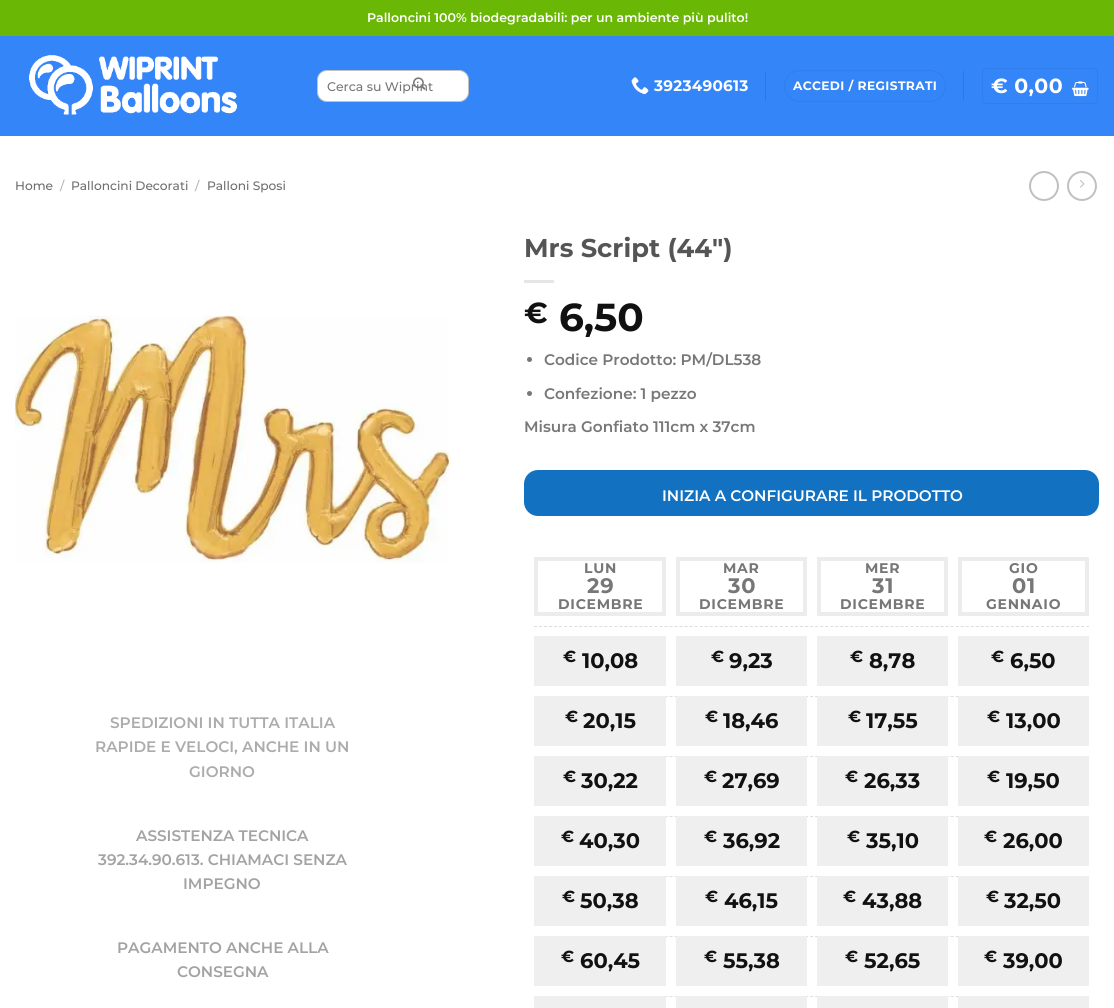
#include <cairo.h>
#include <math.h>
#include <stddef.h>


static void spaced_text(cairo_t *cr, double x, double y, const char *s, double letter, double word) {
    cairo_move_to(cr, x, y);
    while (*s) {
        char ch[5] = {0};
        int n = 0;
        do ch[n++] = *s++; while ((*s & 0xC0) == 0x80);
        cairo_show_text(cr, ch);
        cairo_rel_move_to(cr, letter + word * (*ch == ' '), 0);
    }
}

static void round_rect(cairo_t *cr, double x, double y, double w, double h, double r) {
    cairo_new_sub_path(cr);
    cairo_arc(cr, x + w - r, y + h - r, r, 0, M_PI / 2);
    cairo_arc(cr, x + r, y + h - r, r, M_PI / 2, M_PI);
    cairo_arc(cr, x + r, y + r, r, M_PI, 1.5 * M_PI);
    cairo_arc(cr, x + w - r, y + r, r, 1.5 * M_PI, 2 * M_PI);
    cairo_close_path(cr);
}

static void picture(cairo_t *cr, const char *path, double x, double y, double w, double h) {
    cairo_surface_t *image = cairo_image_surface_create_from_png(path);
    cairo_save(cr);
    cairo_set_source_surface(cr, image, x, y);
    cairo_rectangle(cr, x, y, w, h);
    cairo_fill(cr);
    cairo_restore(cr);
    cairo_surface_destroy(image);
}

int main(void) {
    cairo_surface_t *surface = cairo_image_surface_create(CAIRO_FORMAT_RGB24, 1114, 1008);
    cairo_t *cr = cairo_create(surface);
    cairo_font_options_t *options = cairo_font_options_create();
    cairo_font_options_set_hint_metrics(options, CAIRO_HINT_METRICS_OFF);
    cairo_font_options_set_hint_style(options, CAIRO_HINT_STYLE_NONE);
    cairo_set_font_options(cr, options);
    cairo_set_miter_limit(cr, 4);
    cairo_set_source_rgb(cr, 1, 1, 1);
    cairo_paint(cr);
    cairo_set_source_rgb(cr, 0.416, 0.718, 0.02);
    cairo_rectangle(cr, 0, 0, 1114, 36);
    cairo_fill(cr);
    cairo_select_font_face(cr, "Montserrat SemiBold", CAIRO_FONT_SLANT_NORMAL, CAIRO_FONT_WEIGHT_NORMAL);
    cairo_set_font_size(cr, 12.55);
    cairo_set_source_rgb(cr, 1, 1, 1);
    cairo_move_to(cr, 367, 22);
    cairo_show_text(cr, "Palloncini 100% biodegradabili: per un ambiente più pulito!");
    cairo_set_source_rgb(cr, 0.2, 0.522, 0.969);
    cairo_rectangle(cr, 0, 36, 1114, 100);
    cairo_fill(cr);
    picture(cr, "img1.png", 29, 55, 208, 60);
    cairo_set_source_rgb(cr, 1, 1, 1);
    round_rect(cr, 317, 70, 152, 32, 10);
    cairo_fill(cr);
    round_rect(cr, 317.5, 70.5, 151, 31, 9.5);
    cairo_set_source_rgba(cr, 0, 0, 0, 0.24);
    cairo_set_line_width(cr, 1);
    cairo_stroke(cr);
    cairo_select_font_face(cr, "Montserrat Medium", CAIRO_FONT_SLANT_NORMAL, CAIRO_FONT_WEIGHT_NORMAL);
    cairo_set_font_size(cr, 12.5);
    cairo_set_source_rgb(cr, 0.467, 0.467, 0.467);
    cairo_move_to(cr, 327, 91);
    cairo_show_text(cr, "Cerca su Wiprint");
    picture(cr, "img2.png", 413, 77, 13, 13);
    picture(cr, "img3.png", 631, 77, 18, 18);
    cairo_select_font_face(cr, "Montserrat", CAIRO_FONT_SLANT_NORMAL, CAIRO_FONT_WEIGHT_BOLD);
    cairo_set_font_size(cr, 15.25);
    cairo_set_source_rgb(cr, 1, 1, 1);
    spaced_text(cr, 654, 91, "3923490613", 0.25, 0);
    cairo_set_source_rgb(cr, 0.18, 0.471, 0.871);
    cairo_rectangle(cr, 765, 71, 1, 30);
    cairo_fill(cr);
    round_rect(cr, 784.5, 70.5, 161, 31, 15.5);
    cairo_set_source_rgb(cr, 0.188, 0.494, 0.922);
    cairo_stroke(cr);
    cairo_set_font_size(cr, 12.2);
    cairo_set_source_rgb(cr, 1, 1, 1);
    spaced_text(cr, 793, 90, "ACCEDI / REGISTRATI", 0.4, 0);
    cairo_set_source_rgb(cr, 0.18, 0.471, 0.871);
    cairo_rectangle(cr, 963, 71, 1, 30);
    cairo_fill(cr);
    round_rect(cr, 982.5, 68.5, 115, 35, 4.5);
    cairo_set_source_rgb(cr, 0.188, 0.494, 0.922);
    cairo_stroke(cr);
    cairo_set_font_size(cr, 20.5);
    cairo_set_source_rgb(cr, 1, 1, 1);
    spaced_text(cr, 991, 93, "€ 0,00", 0.4, 0);
    picture(cr, "img4.png", 1072, 81, 17, 16);
    cairo_select_font_face(cr, "Montserrat Medium", CAIRO_FONT_SLANT_NORMAL, CAIRO_FONT_WEIGHT_NORMAL);
    cairo_set_font_size(cr, 12.2);
    cairo_set_source_rgb(cr, 0.431, 0.431, 0.431);
    cairo_move_to(cr, 15, 190);
    cairo_show_text(cr, "Home");
    cairo_set_source_rgb(cr, 0.698, 0.698, 0.698);
    cairo_move_to(cr, 60, 190);
    cairo_show_text(cr, "/");
    cairo_set_source_rgb(cr, 0.431, 0.431, 0.431);
    cairo_move_to(cr, 71, 190);
    cairo_show_text(cr, "Palloncini Decorati");
    cairo_set_source_rgb(cr, 0.698, 0.698, 0.698);
    cairo_move_to(cr, 195, 190);
    cairo_show_text(cr, "/");
    cairo_set_source_rgb(cr, 0.431, 0.431, 0.431);
    cairo_move_to(cr, 207, 190);
    cairo_show_text(cr, "Palloni Sposi");
    cairo_new_path(cr);
    cairo_arc(cr, 1044, 186, 14, 0, 2 * M_PI);
    cairo_set_source_rgb(cr, 0.753, 0.753, 0.753);
    cairo_set_line_width(cr, 2);
    cairo_stroke(cr);
    cairo_arc(cr, 1082, 186, 14, 0, 2 * M_PI);
    cairo_stroke(cr);
    picture(cr, "img5.png", 1080, 180, 5, 8);
    picture(cr, "img6.png", 15, 315, 434, 248);
    cairo_select_font_face(cr, "Montserrat SemiBold", CAIRO_FONT_SLANT_NORMAL, CAIRO_FONT_WEIGHT_NORMAL);
    cairo_set_font_size(cr, 15.25);
    cairo_set_source_rgb(cr, 0.675, 0.675, 0.675);
    cairo_move_to(cr, 110, 728);
    cairo_show_text(cr, "SPEDIZIONI IN TUTTA ITALIA");
    cairo_move_to(cr, 95, 752);
    cairo_show_text(cr, "RAPIDE E VELOCI, ANCHE IN UN");
    cairo_move_to(cr, 189, 777);
    cairo_show_text(cr, "GIORNO");
    cairo_set_source_rgb(cr, 0.639, 0.639, 0.639);
    cairo_move_to(cr, 136, 841);
    cairo_show_text(cr, "ASSISTENZA TECNICA");
    cairo_move_to(cr, 98, 865);
    cairo_show_text(cr, "392.34.90.613. CHIAMACI SENZA");
    cairo_move_to(cr, 183, 889);
    cairo_show_text(cr, "IMPEGNO");
    cairo_move_to(cr, 117, 953);
    cairo_show_text(cr, "PAGAMENTO ANCHE ALLA");
    cairo_move_to(cr, 177, 977);
    cairo_show_text(cr, "CONSEGNA");
    cairo_select_font_face(cr, "Montserrat", CAIRO_FONT_SLANT_NORMAL, CAIRO_FONT_WEIGHT_BOLD);
    cairo_set_font_size(cr, 25.75);
    cairo_set_source_rgb(cr, 0.333, 0.333, 0.333);
    cairo_move_to(cr, 524, 257);
    cairo_show_text(cr, "Mrs Script (44″)");
    cairo_set_source_rgb(cr, 0.902, 0.902, 0.902);
    cairo_rectangle(cr, 524, 280, 30, 3);
    cairo_fill(cr);
    cairo_set_font_size(cr, 29);
    cairo_set_source_rgb(cr, 0.067, 0.067, 0.067);
    cairo_move_to(cr, 524, 323);
    cairo_show_text(cr, "€");
    cairo_set_font_size(cr, 39);
    cairo_move_to(cr, 559, 331);
    cairo_show_text(cr, "6,50");
    cairo_set_source_rgb(cr, 0.467, 0.467, 0.467);
    cairo_new_path(cr);
    cairo_arc(cr, 529.5, 359.5, 2.5, 0, 2 * M_PI);
    cairo_fill(cr);
    cairo_select_font_face(cr, "Montserrat SemiBold", CAIRO_FONT_SLANT_NORMAL, CAIRO_FONT_WEIGHT_NORMAL);
    cairo_set_font_size(cr, 15.25);
    cairo_move_to(cr, 544, 365);
    cairo_show_text(cr, "Codice Prodotto: PM/DL538");
    cairo_new_path(cr);
    cairo_arc(cr, 529.5, 393.5, 2.5, 0, 2 * M_PI);
    cairo_fill(cr);
    cairo_move_to(cr, 544, 399);
    cairo_show_text(cr, "Confezione: 1 pezzo");
    cairo_move_to(cr, 524, 432);
    cairo_show_text(cr, "Misura Gonfiato 111cm x 37cm");
    cairo_set_source_rgb(cr, 0.071, 0.443, 0.757);
    round_rect(cr, 524, 470, 575, 46, 14);
    cairo_fill(cr);
    cairo_set_source_rgb(cr, 1, 1, 1);
    cairo_move_to(cr, 662, 501);
    cairo_show_text(cr, "INIZIA A CONFIGURARE IL PRODOTTO");
    cairo_rectangle(cr, 536, 559, 128, 55);
    cairo_set_source_rgb(cr, 0.925, 0.925, 0.925);
    cairo_set_line_width(cr, 4);
    cairo_stroke(cr);
    cairo_select_font_face(cr, "Montserrat", CAIRO_FONT_SLANT_NORMAL, CAIRO_FONT_WEIGHT_BOLD);
    cairo_set_font_size(cr, 14);
    cairo_set_source_rgb(cr, 0.467, 0.467, 0.467);
    spaced_text(cr, 584, 573, "LUN", 0.75, 0);
    cairo_set_font_size(cr, 21);
    spaced_text(cr, 587, 593, "29", 0.75, 0);
    cairo_set_font_size(cr, 14);
    spaced_text(cr, 558, 609, "DICEMBRE", 0.75, 0);
    cairo_rectangle(cr, 678, 559, 127, 55);
    cairo_set_source_rgb(cr, 0.925, 0.925, 0.925);
    cairo_stroke(cr);
    cairo_set_source_rgb(cr, 0.467, 0.467, 0.467);
    spaced_text(cr, 723, 573, "MAR", 0.75, 0);
    cairo_set_font_size(cr, 21);
    spaced_text(cr, 728, 593, "30", 0.75, 0);
    cairo_set_font_size(cr, 14);
    spaced_text(cr, 699, 609, "DICEMBRE", 0.75, 0);
    cairo_rectangle(cr, 819, 559, 127, 55);
    cairo_set_source_rgb(cr, 0.925, 0.925, 0.925);
    cairo_stroke(cr);
    cairo_set_source_rgb(cr, 0.467, 0.467, 0.467);
    spaced_text(cr, 865, 573, "MER", 0.75, 0);
    cairo_set_font_size(cr, 21);
    spaced_text(cr, 872, 593, "31", 0.75, 0);
    cairo_set_font_size(cr, 14);
    spaced_text(cr, 840, 609, "DICEMBRE", 0.75, 0);
    cairo_rectangle(cr, 960, 559, 127, 55);
    cairo_set_source_rgb(cr, 0.925, 0.925, 0.925);
    cairo_stroke(cr);
    cairo_set_source_rgb(cr, 0.467, 0.467, 0.467);
    spaced_text(cr, 1009, 573, "GIO", 0.75, 0);
    cairo_set_font_size(cr, 21);
    spaced_text(cr, 1012, 593, "01", 0.75, 0);
    cairo_set_font_size(cr, 14);
    spaced_text(cr, 986, 609, "GENNAIO", 0.75, 0);
    cairo_new_path(cr);
    cairo_move_to(cr, 534, 626.5);
    cairo_line_to(cr, 1089, 626.5);
    cairo_set_source_rgb(cr, 0.867, 0.867, 0.867);
    cairo_set_line_width(cr, 1);
    cairo_set_dash(cr, (double[]){3, 2.02}, 2, 0);
    cairo_stroke(cr);
    cairo_set_source_rgb(cr, 0.937, 0.937, 0.937);
    cairo_rectangle(cr, 534, 636, 132, 50);
    cairo_fill(cr);
    cairo_set_font_size(cr, 16);
    cairo_set_source_rgb(cr, 0.067, 0.067, 0.067);
    cairo_move_to(cr, 563, 662);
    cairo_show_text(cr, "€");
    cairo_set_font_size(cr, 21);
    cairo_move_to(cr, 582, 668);
    cairo_show_text(cr, "10,08");
    cairo_set_source_rgb(cr, 0.937, 0.937, 0.937);
    cairo_rectangle(cr, 676, 636, 131, 50);
    cairo_fill(cr);
    cairo_set_font_size(cr, 16);
    cairo_set_source_rgb(cr, 0.067, 0.067, 0.067);
    cairo_move_to(cr, 711, 662);
    cairo_show_text(cr, "€");
    cairo_set_font_size(cr, 21);
    cairo_move_to(cr, 729, 668);
    cairo_show_text(cr, "9,23");
    cairo_set_source_rgb(cr, 0.937, 0.937, 0.937);
    cairo_rectangle(cr, 817, 636, 131, 50);
    cairo_fill(cr);
    cairo_set_font_size(cr, 16);
    cairo_set_source_rgb(cr, 0.067, 0.067, 0.067);
    cairo_move_to(cr, 850, 662);
    cairo_show_text(cr, "€");
    cairo_set_font_size(cr, 21);
    cairo_move_to(cr, 869, 668);
    cairo_show_text(cr, "8,78");
    cairo_set_source_rgb(cr, 0.937, 0.937, 0.937);
    cairo_rectangle(cr, 958, 636, 131, 50);
    cairo_fill(cr);
    cairo_set_font_size(cr, 16);
    cairo_set_source_rgb(cr, 0.067, 0.067, 0.067);
    cairo_move_to(cr, 991, 662);
    cairo_show_text(cr, "€");
    cairo_set_font_size(cr, 21);
    cairo_move_to(cr, 1010, 668);
    cairo_show_text(cr, "6,50");
    cairo_new_path(cr);
    cairo_move_to(cr, 534, 696.5);
    cairo_line_to(cr, 1089, 696.5);
    cairo_set_source_rgb(cr, 0.867, 0.867, 0.867);
    cairo_stroke(cr);
    cairo_set_source_rgb(cr, 0.937, 0.937, 0.937);
    cairo_rectangle(cr, 534, 696, 132, 50);
    cairo_fill(cr);
    cairo_set_font_size(cr, 16);
    cairo_set_source_rgb(cr, 0.067, 0.067, 0.067);
    cairo_move_to(cr, 565, 722);
    cairo_show_text(cr, "€");
    cairo_set_font_size(cr, 21);
    cairo_move_to(cr, 583, 728);
    cairo_show_text(cr, "20,15");
    cairo_set_source_rgb(cr, 0.937, 0.937, 0.937);
    cairo_rectangle(cr, 676, 696, 131, 50);
    cairo_fill(cr);
    cairo_set_font_size(cr, 16);
    cairo_set_source_rgb(cr, 0.067, 0.067, 0.067);
    cairo_move_to(cr, 705, 722);
    cairo_show_text(cr, "€");
    cairo_set_font_size(cr, 21);
    cairo_move_to(cr, 723, 728);
    cairo_show_text(cr, "18,46");
    cairo_set_source_rgb(cr, 0.937, 0.937, 0.937);
    cairo_rectangle(cr, 817, 696, 131, 50);
    cairo_fill(cr);
    cairo_set_font_size(cr, 16);
    cairo_set_source_rgb(cr, 0.067, 0.067, 0.067);
    cairo_move_to(cr, 848, 722);
    cairo_show_text(cr, "€");
    cairo_set_font_size(cr, 21);
    cairo_move_to(cr, 866, 728);
    cairo_show_text(cr, "17,55");
    cairo_set_source_rgb(cr, 0.937, 0.937, 0.937);
    cairo_rectangle(cr, 958, 696, 131, 50);
    cairo_fill(cr);
    cairo_set_font_size(cr, 16);
    cairo_set_source_rgb(cr, 0.067, 0.067, 0.067);
    cairo_move_to(cr, 987, 722);
    cairo_show_text(cr, "€");
    cairo_set_font_size(cr, 21);
    cairo_move_to(cr, 1006, 728);
    cairo_show_text(cr, "13,00");
    cairo_new_path(cr);
    cairo_move_to(cr, 534, 756.5);
    cairo_line_to(cr, 1089, 756.5);
    cairo_set_source_rgb(cr, 0.867, 0.867, 0.867);
    cairo_stroke(cr);
    cairo_set_source_rgb(cr, 0.937, 0.937, 0.937);
    cairo_rectangle(cr, 534, 756, 132, 50);
    cairo_fill(cr);
    cairo_set_font_size(cr, 16);
    cairo_set_source_rgb(cr, 0.067, 0.067, 0.067);
    cairo_move_to(cr, 563, 782);
    cairo_show_text(cr, "€");
    cairo_set_font_size(cr, 21);
    cairo_move_to(cr, 581, 788);
    cairo_show_text(cr, "30,22");
    cairo_set_source_rgb(cr, 0.937, 0.937, 0.937);
    cairo_rectangle(cr, 676, 756, 131, 50);
    cairo_fill(cr);
    cairo_set_font_size(cr, 16);
    cairo_set_source_rgb(cr, 0.067, 0.067, 0.067);
    cairo_move_to(cr, 704, 782);
    cairo_show_text(cr, "€");
    cairo_set_font_size(cr, 21);
    cairo_move_to(cr, 722, 788);
    cairo_show_text(cr, "27,69");
    cairo_set_source_rgb(cr, 0.937, 0.937, 0.937);
    cairo_rectangle(cr, 817, 756, 131, 50);
    cairo_fill(cr);
    cairo_set_font_size(cr, 16);
    cairo_set_source_rgb(cr, 0.067, 0.067, 0.067);
    cairo_move_to(cr, 845, 782);
    cairo_show_text(cr, "€");
    cairo_set_font_size(cr, 21);
    cairo_move_to(cr, 864, 788);
    cairo_show_text(cr, "26,33");
    cairo_set_source_rgb(cr, 0.937, 0.937, 0.937);
    cairo_rectangle(cr, 958, 756, 131, 50);
    cairo_fill(cr);
    cairo_set_font_size(cr, 16);
    cairo_set_source_rgb(cr, 0.067, 0.067, 0.067);
    cairo_move_to(cr, 987, 782);
    cairo_show_text(cr, "€");
    cairo_set_font_size(cr, 21);
    cairo_move_to(cr, 1006, 788);
    cairo_show_text(cr, "19,50");
    cairo_new_path(cr);
    cairo_move_to(cr, 534, 816.5);
    cairo_line_to(cr, 1089, 816.5);
    cairo_set_source_rgb(cr, 0.867, 0.867, 0.867);
    cairo_stroke(cr);
    cairo_set_source_rgb(cr, 0.937, 0.937, 0.937);
    cairo_rectangle(cr, 534, 816, 132, 50);
    cairo_fill(cr);
    cairo_set_font_size(cr, 16);
    cairo_set_source_rgb(cr, 0.067, 0.067, 0.067);
    cairo_move_to(cr, 561, 842);
    cairo_show_text(cr, "€");
    cairo_set_font_size(cr, 21);
    cairo_move_to(cr, 579, 848);
    cairo_show_text(cr, "40,30");
    cairo_set_source_rgb(cr, 0.937, 0.937, 0.937);
    cairo_rectangle(cr, 676, 816, 131, 50);
    cairo_fill(cr);
    cairo_set_font_size(cr, 16);
    cairo_set_source_rgb(cr, 0.067, 0.067, 0.067);
    cairo_move_to(cr, 704, 842);
    cairo_show_text(cr, "€");
    cairo_set_font_size(cr, 21);
    cairo_move_to(cr, 723, 848);
    cairo_show_text(cr, "36,92");
    cairo_set_source_rgb(cr, 0.937, 0.937, 0.937);
    cairo_rectangle(cr, 817, 816, 131, 50);
    cairo_fill(cr);
    cairo_set_font_size(cr, 16);
    cairo_set_source_rgb(cr, 0.067, 0.067, 0.067);
    cairo_move_to(cr, 847, 842);
    cairo_show_text(cr, "€");
    cairo_set_font_size(cr, 21);
    cairo_move_to(cr, 866, 848);
    cairo_show_text(cr, "35,10");
    cairo_set_source_rgb(cr, 0.937, 0.937, 0.937);
    cairo_rectangle(cr, 958, 816, 131, 50);
    cairo_fill(cr);
    cairo_set_font_size(cr, 16);
    cairo_set_source_rgb(cr, 0.067, 0.067, 0.067);
    cairo_move_to(cr, 984, 842);
    cairo_show_text(cr, "€");
    cairo_set_font_size(cr, 21);
    cairo_move_to(cr, 1003, 848);
    cairo_show_text(cr, "26,00");
    cairo_new_path(cr);
    cairo_move_to(cr, 534, 876.5);
    cairo_line_to(cr, 1089, 876.5);
    cairo_set_source_rgb(cr, 0.867, 0.867, 0.867);
    cairo_stroke(cr);
    cairo_set_source_rgb(cr, 0.937, 0.937, 0.937);
    cairo_rectangle(cr, 534, 876, 132, 50);
    cairo_fill(cr);
    cairo_set_font_size(cr, 16);
    cairo_set_source_rgb(cr, 0.067, 0.067, 0.067);
    cairo_move_to(cr, 562, 902);
    cairo_show_text(cr, "€");
    cairo_set_font_size(cr, 21);
    cairo_move_to(cr, 580, 908);
    cairo_show_text(cr, "50,38");
    cairo_set_source_rgb(cr, 0.937, 0.937, 0.937);
    cairo_rectangle(cr, 676, 876, 131, 50);
    cairo_fill(cr);
    cairo_set_font_size(cr, 16);
    cairo_set_source_rgb(cr, 0.067, 0.067, 0.067);
    cairo_move_to(cr, 705, 902);
    cairo_show_text(cr, "€");
    cairo_set_font_size(cr, 21);
    cairo_move_to(cr, 724, 908);
    cairo_show_text(cr, "46,15");
    cairo_set_source_rgb(cr, 0.937, 0.937, 0.937);
    cairo_rectangle(cr, 817, 876, 131, 50);
    cairo_fill(cr);
    cairo_set_font_size(cr, 16);
    cairo_set_source_rgb(cr, 0.067, 0.067, 0.067);
    cairo_move_to(cr, 843, 902);
    cairo_show_text(cr, "€");
    cairo_set_font_size(cr, 21);
    cairo_move_to(cr, 862, 908);
    cairo_show_text(cr, "43,88");
    cairo_set_source_rgb(cr, 0.937, 0.937, 0.937);
    cairo_rectangle(cr, 958, 876, 131, 50);
    cairo_fill(cr);
    cairo_set_font_size(cr, 16);
    cairo_set_source_rgb(cr, 0.067, 0.067, 0.067);
    cairo_move_to(cr, 986, 902);
    cairo_show_text(cr, "€");
    cairo_set_font_size(cr, 21);
    cairo_move_to(cr, 1004, 908);
    cairo_show_text(cr, "32,50");
    cairo_new_path(cr);
    cairo_move_to(cr, 534, 936.5);
    cairo_line_to(cr, 1089, 936.5);
    cairo_set_source_rgb(cr, 0.867, 0.867, 0.867);
    cairo_stroke(cr);
    cairo_set_source_rgb(cr, 0.937, 0.937, 0.937);
    cairo_rectangle(cr, 534, 936, 132, 50);
    cairo_fill(cr);
    cairo_set_font_size(cr, 16);
    cairo_set_source_rgb(cr, 0.067, 0.067, 0.067);
    cairo_move_to(cr, 561, 962);
    cairo_show_text(cr, "€");
    cairo_set_font_size(cr, 21);
    cairo_move_to(cr, 580, 968);
    cairo_show_text(cr, "60,45");
    cairo_set_source_rgb(cr, 0.937, 0.937, 0.937);
    cairo_rectangle(cr, 676, 936, 131, 50);
    cairo_fill(cr);
    cairo_set_font_size(cr, 16);
    cairo_set_source_rgb(cr, 0.067, 0.067, 0.067);
    cairo_move_to(cr, 704, 962);
    cairo_show_text(cr, "€");
    cairo_set_font_size(cr, 21);
    cairo_move_to(cr, 723, 968);
    cairo_show_text(cr, "55,38");
    cairo_set_source_rgb(cr, 0.937, 0.937, 0.937);
    cairo_rectangle(cr, 817, 936, 131, 50);
    cairo_fill(cr);
    cairo_set_font_size(cr, 16);
    cairo_set_source_rgb(cr, 0.067, 0.067, 0.067);
    cairo_move_to(cr, 845, 962);
    cairo_show_text(cr, "€");
    cairo_set_font_size(cr, 21);
    cairo_move_to(cr, 864, 968);
    cairo_show_text(cr, "52,65");
    cairo_set_source_rgb(cr, 0.937, 0.937, 0.937);
    cairo_rectangle(cr, 958, 936, 131, 50);
    cairo_fill(cr);
    cairo_set_font_size(cr, 16);
    cairo_set_source_rgb(cr, 0.067, 0.067, 0.067);
    cairo_move_to(cr, 984, 962);
    cairo_show_text(cr, "€");
    cairo_set_font_size(cr, 21);
    cairo_move_to(cr, 1003, 968);
    cairo_show_text(cr, "39,00");
    cairo_new_path(cr);
    cairo_move_to(cr, 534, 996.5);
    cairo_line_to(cr, 1089, 996.5);
    cairo_set_source_rgb(cr, 0.867, 0.867, 0.867);
    cairo_stroke(cr);
    cairo_set_source_rgb(cr, 0.937, 0.937, 0.937);
    cairo_rectangle(cr, 534, 996, 132, 12);
    cairo_fill(cr);
    cairo_rectangle(cr, 676, 996, 131, 12);
    cairo_fill(cr);
    cairo_rectangle(cr, 817, 996, 131, 12);
    cairo_fill(cr);
    cairo_rectangle(cr, 958, 996, 131, 12);
    cairo_fill(cr);
    cairo_surface_write_to_png(surface, "page.png");
    cairo_font_options_destroy(options);
    cairo_destroy(cr);
    cairo_surface_destroy(surface);
    return 0;
}
